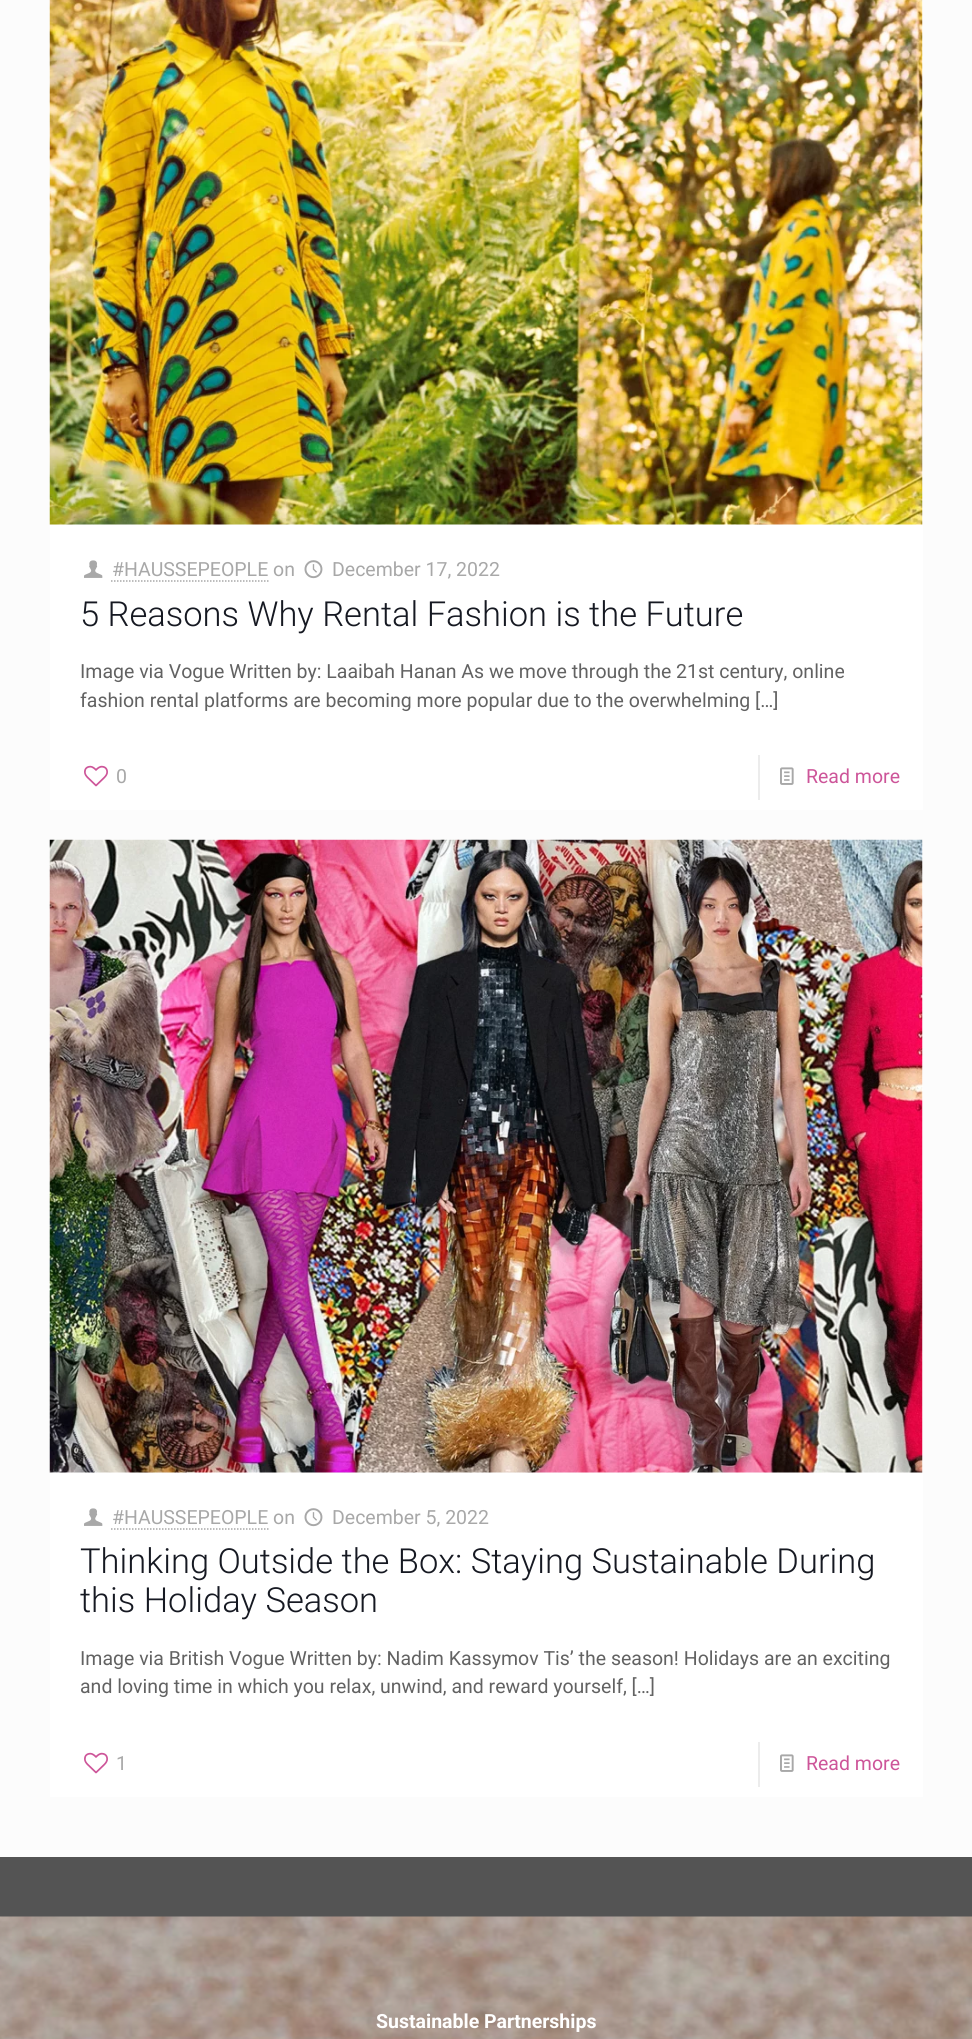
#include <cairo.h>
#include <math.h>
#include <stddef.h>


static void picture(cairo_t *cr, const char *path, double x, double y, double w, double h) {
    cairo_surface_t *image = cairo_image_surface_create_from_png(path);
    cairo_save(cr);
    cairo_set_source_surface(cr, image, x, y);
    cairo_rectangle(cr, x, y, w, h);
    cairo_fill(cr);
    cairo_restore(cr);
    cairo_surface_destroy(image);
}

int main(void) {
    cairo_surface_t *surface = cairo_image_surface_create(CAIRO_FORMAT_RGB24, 972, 2039);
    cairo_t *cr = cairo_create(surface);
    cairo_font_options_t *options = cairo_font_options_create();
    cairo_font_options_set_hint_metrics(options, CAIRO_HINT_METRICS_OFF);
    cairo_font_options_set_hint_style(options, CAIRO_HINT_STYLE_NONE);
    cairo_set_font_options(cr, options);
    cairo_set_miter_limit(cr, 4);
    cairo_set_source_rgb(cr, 0.988, 0.988, 0.988);
    cairo_paint(cr);
    cairo_set_source_rgb(cr, 1, 1, 1);
    cairo_rectangle(cr, 50, 0, 873, 810);
    cairo_fill(cr);
    picture(cr, "img1.png", 49, 0, 874, 525);
    picture(cr, "img2.png", 84, 560, 19, 18);
    cairo_select_font_face(cr, "Roboto", CAIRO_FONT_SLANT_NORMAL, CAIRO_FONT_WEIGHT_NORMAL);
    cairo_set_font_size(cr, 19.5);
    cairo_set_source_rgb(cr, 0.659, 0.659, 0.659);
    cairo_move_to(cr, 112, 576);
    cairo_show_text(cr, "#HAUSSEPEOPLE on");
    cairo_new_path(cr);
    cairo_move_to(cr, 111, 581);
    cairo_line_to(cr, 268.5, 581);
    cairo_set_line_width(cr, 1.5);
    cairo_set_dash(cr, (double[]){1.5, 1.5}, 2, 0);
    cairo_stroke(cr);
    picture(cr, "img3.png", 304, 560, 19, 19);
    cairo_move_to(cr, 332, 576);
    cairo_show_text(cr, "December 17, 2022");
    cairo_select_font_face(cr, "Roboto Light", CAIRO_FONT_SLANT_NORMAL, CAIRO_FONT_WEIGHT_NORMAL);
    cairo_set_font_size(cr, 34.5);
    cairo_set_source_rgb(cr, 0.086, 0.098, 0.133);
    cairo_move_to(cr, 80, 626);
    cairo_show_text(cr, "5 Reasons Why Rental Fashion is the Future");
    cairo_select_font_face(cr, "Roboto", CAIRO_FONT_SLANT_NORMAL, CAIRO_FONT_WEIGHT_NORMAL);
    cairo_set_font_size(cr, 19.5);
    cairo_set_source_rgb(cr, 0.384, 0.384, 0.384);
    cairo_move_to(cr, 80, 678);
    cairo_show_text(cr, "Image via Vogue Written by: Laaibah Hanan As we move through the 21st century, online");
    cairo_move_to(cr, 80, 707);
    cairo_show_text(cr, "fashion rental platforms are becoming more popular due to the overwhelming […]");
    picture(cr, "img4.png", 84, 765, 24, 22);
    cairo_set_source_rgb(cr, 0.659, 0.659, 0.659);
    cairo_move_to(cr, 116, 783);
    cairo_show_text(cr, "0");
    cairo_set_source_rgb(cr, 0.922, 0.922, 0.922);
    cairo_rectangle(cr, 758, 755, 2, 45);
    cairo_fill(cr);
    picture(cr, "img5.png", 780, 767, 14, 18);
    cairo_set_source_rgb(cr, 0.804, 0.333, 0.6);
    cairo_move_to(cr, 806, 783);
    cairo_show_text(cr, "Read more");
    cairo_set_source_rgb(cr, 1, 1, 1);
    cairo_rectangle(cr, 50, 840, 873, 957);
    cairo_fill(cr);
    picture(cr, "img6.png", 49, 839, 874, 634);
    picture(cr, "img2.png", 84, 1508, 19, 18);
    cairo_set_source_rgb(cr, 0.659, 0.659, 0.659);
    cairo_move_to(cr, 112, 1524);
    cairo_show_text(cr, "#HAUSSEPEOPLE on");
    cairo_new_path(cr);
    cairo_move_to(cr, 111, 1529);
    cairo_line_to(cr, 268.5, 1529);
    cairo_stroke(cr);
    picture(cr, "img3.png", 304, 1508, 19, 19);
    cairo_move_to(cr, 332, 1524);
    cairo_show_text(cr, "December 5, 2022");
    cairo_select_font_face(cr, "Roboto Light", CAIRO_FONT_SLANT_NORMAL, CAIRO_FONT_WEIGHT_NORMAL);
    cairo_set_font_size(cr, 34.5);
    cairo_set_source_rgb(cr, 0.086, 0.098, 0.133);
    cairo_move_to(cr, 80, 1573);
    cairo_show_text(cr, "Thinking Outside the Box: Staying Sustainable During");
    cairo_move_to(cr, 80, 1612);
    cairo_show_text(cr, "this Holiday Season");
    cairo_select_font_face(cr, "Roboto", CAIRO_FONT_SLANT_NORMAL, CAIRO_FONT_WEIGHT_NORMAL);
    cairo_set_font_size(cr, 19.5);
    cairo_set_source_rgb(cr, 0.384, 0.384, 0.384);
    cairo_move_to(cr, 80, 1665);
    cairo_show_text(cr, "Image via British Vogue Written by: Nadim Kassymov Tis’ the season! Holidays are an exciting");
    cairo_move_to(cr, 80, 1693);
    cairo_show_text(cr, "and loving time in which you relax, unwind, and reward yourself, […]");
    picture(cr, "img4.png", 84, 1752, 24, 22);
    cairo_set_source_rgb(cr, 0.659, 0.659, 0.659);
    cairo_move_to(cr, 116, 1770);
    cairo_show_text(cr, "1");
    cairo_set_source_rgb(cr, 0.922, 0.922, 0.922);
    cairo_rectangle(cr, 758, 1742, 2, 45);
    cairo_fill(cr);
    picture(cr, "img5.png", 780, 1754, 14, 18);
    cairo_set_source_rgb(cr, 0.804, 0.333, 0.6);
    cairo_move_to(cr, 806, 1770);
    cairo_show_text(cr, "Read more");
    cairo_set_source_rgb(cr, 0.329, 0.329, 0.329);
    cairo_rectangle(cr, 0, 1857, 972, 60);
    cairo_fill(cr);
    picture(cr, "img7.png", 0, 1916, 972, 123);
    cairo_select_font_face(cr, "Roboto", CAIRO_FONT_SLANT_NORMAL, CAIRO_FONT_WEIGHT_BOLD);
    cairo_set_source_rgb(cr, 1, 1, 1);
    cairo_move_to(cr, 376, 2028);
    cairo_show_text(cr, "Sustainable Partnerships");
    cairo_surface_write_to_png(surface, "page.png");
    cairo_font_options_destroy(options);
    cairo_destroy(cr);
    cairo_surface_destroy(surface);
    return 0;
}
